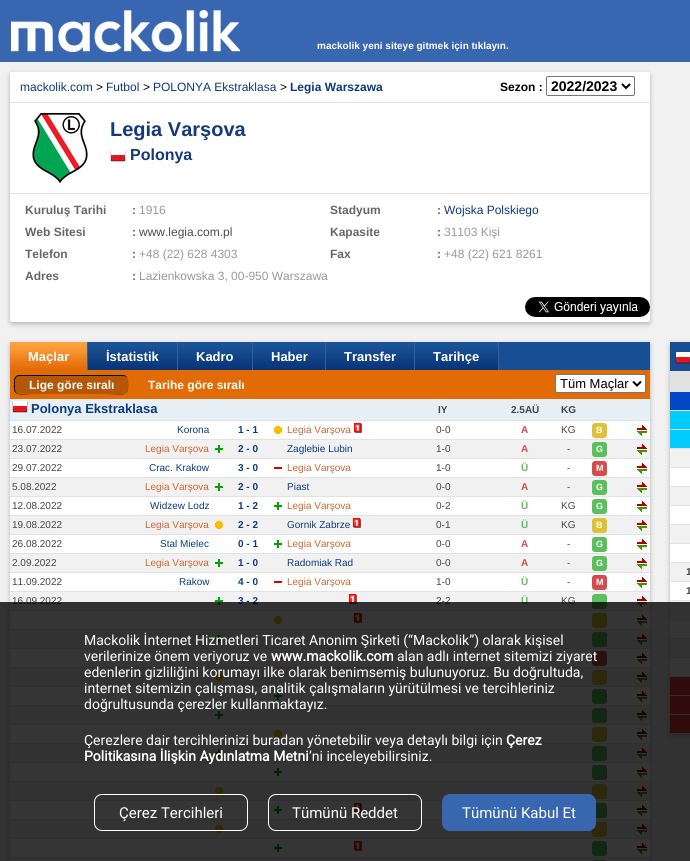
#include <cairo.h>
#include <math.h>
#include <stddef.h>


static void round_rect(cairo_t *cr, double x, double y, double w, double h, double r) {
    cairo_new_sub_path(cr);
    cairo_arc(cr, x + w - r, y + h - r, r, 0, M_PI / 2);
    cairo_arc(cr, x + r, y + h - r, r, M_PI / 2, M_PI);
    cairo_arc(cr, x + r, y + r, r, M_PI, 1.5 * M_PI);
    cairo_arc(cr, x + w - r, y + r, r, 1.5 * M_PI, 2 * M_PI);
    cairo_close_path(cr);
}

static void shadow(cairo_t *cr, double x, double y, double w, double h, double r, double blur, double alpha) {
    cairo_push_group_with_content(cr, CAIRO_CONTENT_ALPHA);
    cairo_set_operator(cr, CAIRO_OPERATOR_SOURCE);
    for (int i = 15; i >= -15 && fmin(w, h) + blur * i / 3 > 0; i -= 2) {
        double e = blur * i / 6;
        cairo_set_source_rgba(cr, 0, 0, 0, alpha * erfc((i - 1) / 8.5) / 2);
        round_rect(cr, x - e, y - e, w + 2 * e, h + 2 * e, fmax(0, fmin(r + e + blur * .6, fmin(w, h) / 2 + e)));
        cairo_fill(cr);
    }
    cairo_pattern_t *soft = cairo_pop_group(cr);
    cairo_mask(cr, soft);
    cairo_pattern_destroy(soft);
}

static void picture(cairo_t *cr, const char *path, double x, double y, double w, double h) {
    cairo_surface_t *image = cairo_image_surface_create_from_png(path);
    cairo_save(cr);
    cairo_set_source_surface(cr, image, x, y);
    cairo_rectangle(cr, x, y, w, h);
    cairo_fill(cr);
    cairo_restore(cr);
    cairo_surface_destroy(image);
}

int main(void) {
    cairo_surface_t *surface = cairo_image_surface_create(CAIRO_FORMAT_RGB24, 690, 861);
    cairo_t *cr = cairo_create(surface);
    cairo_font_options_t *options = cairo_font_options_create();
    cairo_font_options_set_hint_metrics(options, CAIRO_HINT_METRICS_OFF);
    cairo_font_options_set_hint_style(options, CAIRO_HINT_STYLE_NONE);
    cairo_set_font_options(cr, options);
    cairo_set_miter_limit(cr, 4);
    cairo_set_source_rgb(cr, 0.22, 0.4, 0.69);
    cairo_paint(cr);
    picture(cr, "img1.png", 11, 10, 229, 42);
    cairo_select_font_face(cr, "Liberation Sans", CAIRO_FONT_SLANT_NORMAL, CAIRO_FONT_WEIGHT_BOLD);
    cairo_set_font_size(cr, 10);
    cairo_set_source_rgb(cr, 1, 1, 1);
    cairo_move_to(cr, 317, 49);
    cairo_show_text(cr, "mackolik yeni siteye gitmek için tıklayın.");
    cairo_set_source_rgb(cr, 0.945, 0.945, 0.945);
    cairo_rectangle(cr, 0, 62, 690, 799);
    cairo_fill(cr);
    cairo_set_source_rgb(cr, 0, 0, 0);
    shadow(cr, 10, 74, 640, 250, 2, 2.5, 0.26);
    cairo_set_source_rgb(cr, 1, 1, 1);
    round_rect(cr, 10, 72, 640, 250, 2);
    cairo_fill(cr);
    cairo_rectangle(cr, 10, 72, 640, 2);
    cairo_fill(cr);
    cairo_set_source_rgb(cr, 0.886, 0.886, 0.886);
    cairo_rectangle(cr, 10, 102, 640, 1);
    cairo_fill(cr);
    cairo_select_font_face(cr, "Liberation Sans", CAIRO_FONT_SLANT_NORMAL, CAIRO_FONT_WEIGHT_NORMAL);
    cairo_set_font_size(cr, 12);
    cairo_set_source_rgb(cr, 0.047, 0.227, 0.494);
    cairo_move_to(cr, 20, 91);
    cairo_show_text(cr, "mackolik.com");
    cairo_set_source_rgb(cr, 0, 0, 0);
    cairo_move_to(cr, 96, 91);
    cairo_show_text(cr, ">");
    cairo_set_source_rgb(cr, 0.047, 0.227, 0.494);
    cairo_move_to(cr, 106, 91);
    cairo_show_text(cr, "Futbol");
    cairo_set_source_rgb(cr, 0, 0, 0);
    cairo_move_to(cr, 143, 91);
    cairo_show_text(cr, ">");
    cairo_set_source_rgb(cr, 0.047, 0.227, 0.494);
    cairo_move_to(cr, 153, 91);
    cairo_show_text(cr, "POLONYA Ekstraklasa");
    cairo_set_source_rgb(cr, 0, 0, 0);
    cairo_move_to(cr, 280, 91);
    cairo_show_text(cr, ">");
    cairo_select_font_face(cr, "Liberation Sans", CAIRO_FONT_SLANT_NORMAL, CAIRO_FONT_WEIGHT_BOLD);
    cairo_set_source_rgb(cr, 0.047, 0.227, 0.494);
    cairo_move_to(cr, 290, 91);
    cairo_show_text(cr, "Legia Warszawa");
    cairo_set_source_rgb(cr, 0, 0, 0);
    cairo_move_to(cr, 500, 91);
    cairo_show_text(cr, "Sezon :");
    round_rect(cr, 546.5, 76.5, 88, 19, 1.5);
    cairo_set_source_rgb(cr, 0.463, 0.463, 0.463);
    cairo_set_line_width(cr, 1);
    cairo_stroke(cr);
    cairo_new_path(cr);
    cairo_move_to(cr, 622, 84);
    cairo_line_to(cr, 626, 88);
    cairo_line_to(cr, 630, 84);
    cairo_set_source_rgb(cr, 0, 0, 0);
    cairo_set_line_width(cr, 2);
    cairo_stroke(cr);
    cairo_set_font_size(cr, 14);
    cairo_move_to(cr, 551, 91);
    cairo_show_text(cr, "2022/2023");
    cairo_set_source_rgb(cr, 0.886, 0.886, 0.886);
    cairo_rectangle(cr, 10, 193, 640, 1);
    cairo_fill(cr);
    picture(cr, "img2.png", 32, 113, 56, 70);
    cairo_set_font_size(cr, 20);
    cairo_set_source_rgb(cr, 0.086, 0.22, 0.486);
    cairo_move_to(cr, 110, 136);
    cairo_show_text(cr, "Legia Varşova");
    picture(cr, "img3.png", 110, 150, 16, 12);
    cairo_set_font_size(cr, 16);
    cairo_move_to(cr, 130, 160);
    cairo_show_text(cr, "Polonya");
    cairo_set_font_size(cr, 12);
    cairo_set_source_rgb(cr, 0.4, 0.4, 0.4);
    cairo_move_to(cr, 25, 214);
    cairo_show_text(cr, "Kuruluş Tarihi");
    cairo_move_to(cr, 132, 214);
    cairo_show_text(cr, ":");
    cairo_select_font_face(cr, "Liberation Sans", CAIRO_FONT_SLANT_NORMAL, CAIRO_FONT_WEIGHT_NORMAL);
    cairo_set_source_rgb(cr, 0.6, 0.6, 0.6);
    cairo_move_to(cr, 139, 214);
    cairo_show_text(cr, "1916");
    cairo_select_font_face(cr, "Liberation Sans", CAIRO_FONT_SLANT_NORMAL, CAIRO_FONT_WEIGHT_BOLD);
    cairo_set_source_rgb(cr, 0.4, 0.4, 0.4);
    cairo_move_to(cr, 330, 214);
    cairo_show_text(cr, "Stadyum");
    cairo_move_to(cr, 437, 214);
    cairo_show_text(cr, ":");
    cairo_select_font_face(cr, "Liberation Sans", CAIRO_FONT_SLANT_NORMAL, CAIRO_FONT_WEIGHT_NORMAL);
    cairo_set_source_rgb(cr, 0.047, 0.227, 0.494);
    cairo_move_to(cr, 444, 214);
    cairo_show_text(cr, "Wojska Polskiego");
    cairo_select_font_face(cr, "Liberation Sans", CAIRO_FONT_SLANT_NORMAL, CAIRO_FONT_WEIGHT_BOLD);
    cairo_set_source_rgb(cr, 0.4, 0.4, 0.4);
    cairo_move_to(cr, 25, 236);
    cairo_show_text(cr, "Web Sitesi");
    cairo_move_to(cr, 132, 236);
    cairo_show_text(cr, ":");
    cairo_select_font_face(cr, "Liberation Sans", CAIRO_FONT_SLANT_NORMAL, CAIRO_FONT_WEIGHT_NORMAL);
    cairo_set_source_rgb(cr, 0.294, 0.294, 0.294);
    cairo_move_to(cr, 139, 236);
    cairo_show_text(cr, "www.legia.com.pl");
    cairo_select_font_face(cr, "Liberation Sans", CAIRO_FONT_SLANT_NORMAL, CAIRO_FONT_WEIGHT_BOLD);
    cairo_set_source_rgb(cr, 0.4, 0.4, 0.4);
    cairo_move_to(cr, 330, 236);
    cairo_show_text(cr, "Kapasite");
    cairo_move_to(cr, 437, 236);
    cairo_show_text(cr, ":");
    cairo_select_font_face(cr, "Liberation Sans", CAIRO_FONT_SLANT_NORMAL, CAIRO_FONT_WEIGHT_NORMAL);
    cairo_set_source_rgb(cr, 0.6, 0.6, 0.6);
    cairo_move_to(cr, 444, 236);
    cairo_show_text(cr, "31103 Kişi");
    cairo_select_font_face(cr, "Liberation Sans", CAIRO_FONT_SLANT_NORMAL, CAIRO_FONT_WEIGHT_BOLD);
    cairo_set_source_rgb(cr, 0.4, 0.4, 0.4);
    cairo_move_to(cr, 25, 258);
    cairo_show_text(cr, "Telefon");
    cairo_move_to(cr, 132, 258);
    cairo_show_text(cr, ":");
    cairo_select_font_face(cr, "Liberation Sans", CAIRO_FONT_SLANT_NORMAL, CAIRO_FONT_WEIGHT_NORMAL);
    cairo_set_source_rgb(cr, 0.6, 0.6, 0.6);
    cairo_move_to(cr, 139, 258);
    cairo_show_text(cr, "+48 (22) 628 4303");
    cairo_select_font_face(cr, "Liberation Sans", CAIRO_FONT_SLANT_NORMAL, CAIRO_FONT_WEIGHT_BOLD);
    cairo_set_source_rgb(cr, 0.4, 0.4, 0.4);
    cairo_move_to(cr, 330, 258);
    cairo_show_text(cr, "Fax");
    cairo_move_to(cr, 437, 258);
    cairo_show_text(cr, ":");
    cairo_select_font_face(cr, "Liberation Sans", CAIRO_FONT_SLANT_NORMAL, CAIRO_FONT_WEIGHT_NORMAL);
    cairo_set_source_rgb(cr, 0.6, 0.6, 0.6);
    cairo_move_to(cr, 444, 258);
    cairo_show_text(cr, "+48 (22) 621 8261");
    cairo_select_font_face(cr, "Liberation Sans", CAIRO_FONT_SLANT_NORMAL, CAIRO_FONT_WEIGHT_BOLD);
    cairo_set_source_rgb(cr, 0.4, 0.4, 0.4);
    cairo_move_to(cr, 25, 280);
    cairo_show_text(cr, "Adres");
    cairo_move_to(cr, 132, 280);
    cairo_show_text(cr, ":");
    cairo_select_font_face(cr, "Liberation Sans", CAIRO_FONT_SLANT_NORMAL, CAIRO_FONT_WEIGHT_NORMAL);
    cairo_set_source_rgb(cr, 0.6, 0.6, 0.6);
    cairo_move_to(cr, 139, 280);
    cairo_show_text(cr, "Lazienkowska 3, 00-950 Warszawa");
    picture(cr, "img4.png", 525, 297, 125, 20);
    cairo_set_source_rgb(cr, 0, 0, 0);
    shadow(cr, 10, 344, 640, 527, 2, 2.5, 0.26);
    cairo_set_source_rgb(cr, 1, 1, 1);
    cairo_rectangle(cr, 10, 421, 640, 436);
    cairo_fill(cr);
    cairo_set_source_rgb(cr, 0.094, 0.31, 0.573);
    cairo_rectangle(cr, 499, 342, 151, 28);
    cairo_fill(cr);
    picture(cr, "img5.png", 10, 342, 77, 28);
    cairo_set_source_rgb(cr, 0.188, 0.38, 0.616);
    cairo_rectangle(cr, 87, 342, 1, 28);
    cairo_fill(cr);
    cairo_select_font_face(cr, "Liberation Sans", CAIRO_FONT_SLANT_NORMAL, CAIRO_FONT_WEIGHT_BOLD);
    cairo_set_font_size(cr, 13);
    cairo_set_source_rgb(cr, 1, 1, 1);
    cairo_move_to(cr, 28, 361);
    cairo_show_text(cr, "Maçlar");
    picture(cr, "img6.png", 88, 342, 89, 28);
    cairo_set_source_rgb(cr, 0.188, 0.38, 0.616);
    cairo_rectangle(cr, 177, 342, 1, 28);
    cairo_fill(cr);
    cairo_set_source_rgb(cr, 1, 1, 1);
    cairo_move_to(cr, 106, 361);
    cairo_show_text(cr, "İstatistik");
    picture(cr, "img7.png", 178, 342, 74, 28);
    cairo_set_source_rgb(cr, 0.188, 0.38, 0.616);
    cairo_rectangle(cr, 252, 342, 1, 28);
    cairo_fill(cr);
    cairo_set_source_rgb(cr, 1, 1, 1);
    cairo_move_to(cr, 196, 361);
    cairo_show_text(cr, "Kadro");
    picture(cr, "img8.png", 253, 342, 72, 28);
    cairo_set_source_rgb(cr, 0.188, 0.38, 0.616);
    cairo_rectangle(cr, 325, 342, 1, 28);
    cairo_fill(cr);
    cairo_set_source_rgb(cr, 1, 1, 1);
    cairo_move_to(cr, 271, 361);
    cairo_show_text(cr, "Haber");
    picture(cr, "img9.png", 326, 342, 88, 28);
    cairo_set_source_rgb(cr, 0.188, 0.38, 0.616);
    cairo_rectangle(cr, 414, 342, 1, 28);
    cairo_fill(cr);
    cairo_set_source_rgb(cr, 1, 1, 1);
    cairo_move_to(cr, 344, 361);
    cairo_show_text(cr, "Transfer");
    picture(cr, "img10.png", 415, 342, 83, 28);
    cairo_set_source_rgb(cr, 0.188, 0.38, 0.616);
    cairo_rectangle(cr, 498, 342, 1, 28);
    cairo_fill(cr);
    cairo_set_source_rgb(cr, 1, 1, 1);
    cairo_move_to(cr, 433, 361);
    cairo_show_text(cr, "Tarihçe");
    cairo_set_source_rgb(cr, 0.89, 0.42, 0.027);
    cairo_rectangle(cr, 10, 370, 640, 29);
    cairo_fill(cr);
    cairo_set_source_rgb(cr, 0.706, 0.341, 0.035);
    round_rect(cr, 14, 375, 114, 19, 5);
    cairo_fill(cr);
    cairo_set_source_rgb(cr, 0, 0, 0);
    cairo_set_fill_rule(cr, CAIRO_FILL_RULE_EVEN_ODD);
    cairo_new_path(cr);
    cairo_move_to(cr, 19, 375);
    cairo_line_to(cr, 124, 375);
    cairo_curve_to(cr, 126, 376, 128, 378, 128, 380);
    cairo_curve_to(cr, 129, 398, 126, 394, 106, 394);
    cairo_line_to(cr, 36, 394);
    cairo_curve_to(cr, 16, 394, 13, 398, 14, 380);
    cairo_curve_to(cr, 14, 378, 16, 376, 18, 375);
    cairo_close_path(cr);
    cairo_move_to(cr, 19, 376);
    cairo_line_to(cr, 123, 376);
    cairo_curve_to(cr, 126, 376, 128, 378, 128, 380);
    cairo_line_to(cr, 128, 389);
    cairo_curve_to(cr, 128, 392, 126, 394, 123, 394);
    cairo_line_to(cr, 19, 394);
    cairo_curve_to(cr, 17, 394, 15, 392, 15, 389);
    cairo_line_to(cr, 15, 380);
    cairo_curve_to(cr, 15, 378, 17, 376, 19, 376);
    cairo_close_path(cr);
    cairo_fill(cr);
    cairo_set_font_size(cr, 12);
    cairo_set_source_rgb(cr, 1, 1, 1);
    cairo_move_to(cr, 29, 389);
    cairo_show_text(cr, "Lige göre sıralı");
    cairo_move_to(cr, 148, 389);
    cairo_show_text(cr, "Tarihe göre sıralı");
    round_rect(cr, 555.5, 374.5, 90, 18, 1.5);
    cairo_fill_preserve(cr);
    cairo_set_source_rgb(cr, 0.463, 0.463, 0.463);
    cairo_set_line_width(cr, 1);
    cairo_stroke(cr);
    cairo_new_path(cr);
    cairo_move_to(cr, 633, 381.5);
    cairo_line_to(cr, 637, 385.5);
    cairo_line_to(cr, 641, 381.5);
    cairo_set_source_rgb(cr, 0, 0, 0);
    cairo_set_line_width(cr, 2);
    cairo_stroke(cr);
    cairo_select_font_face(cr, "Liberation Sans", CAIRO_FONT_SLANT_NORMAL, CAIRO_FONT_WEIGHT_NORMAL);
    cairo_set_font_size(cr, 13);
    cairo_move_to(cr, 560, 388);
    cairo_show_text(cr, "Tüm Maçlar");
    cairo_set_source_rgb(cr, 0.902, 0.937, 0.961);
    cairo_rectangle(cr, 10, 399, 640, 21);
    cairo_fill(cr);
    cairo_set_source_rgb(cr, 0.886, 0.886, 0.886);
    cairo_rectangle(cr, 10, 420, 640, 1);
    cairo_fill(cr);
    picture(cr, "img11.png", 12, 401, 16, 12);
    cairo_select_font_face(cr, "Liberation Sans", CAIRO_FONT_SLANT_NORMAL, CAIRO_FONT_WEIGHT_BOLD);
    cairo_set_source_rgb(cr, 0.047, 0.227, 0.494);
    cairo_move_to(cr, 31, 413);
    cairo_show_text(cr, "Polonya Ekstraklasa");
    cairo_set_font_size(cr, 10);
    cairo_set_source_rgb(cr, 0.267, 0.267, 0.267);
    cairo_move_to(cr, 438, 413);
    cairo_show_text(cr, "IY");
    cairo_move_to(cr, 511, 413);
    cairo_show_text(cr, "2.5AÜ");
    cairo_move_to(cr, 561, 413);
    cairo_show_text(cr, "KG");
    cairo_set_source_rgb(cr, 0.886, 0.886, 0.886);
    cairo_rectangle(cr, 10, 439, 640, 1);
    cairo_fill(cr);
    cairo_select_font_face(cr, "Liberation Sans", CAIRO_FONT_SLANT_NORMAL, CAIRO_FONT_WEIGHT_NORMAL);
    cairo_set_source_rgb(cr, 0.267, 0.267, 0.267);
    cairo_move_to(cr, 12, 433);
    cairo_show_text(cr, "16.07.2022");
    cairo_set_source_rgb(cr, 0.047, 0.227, 0.494);
    cairo_move_to(cr, 177, 433);
    cairo_show_text(cr, "Korona");
    cairo_select_font_face(cr, "Liberation Sans", CAIRO_FONT_SLANT_NORMAL, CAIRO_FONT_WEIGHT_BOLD);
    cairo_move_to(cr, 238, 433);
    cairo_show_text(cr, "1 - 1");
    picture(cr, "img12.png", 274, 426, 8, 8);
    cairo_select_font_face(cr, "Liberation Sans", CAIRO_FONT_SLANT_NORMAL, CAIRO_FONT_WEIGHT_NORMAL);
    cairo_set_source_rgb(cr, 0.8, 0.4, 0.2);
    cairo_move_to(cr, 287, 433);
    cairo_show_text(cr, "Legia Varşova");
    picture(cr, "img13.png", 354, 423, 8, 10);
    cairo_set_source_rgb(cr, 0.267, 0.267, 0.267);
    cairo_move_to(cr, 436, 433);
    cairo_show_text(cr, "0-0");
    cairo_select_font_face(cr, "Liberation Sans", CAIRO_FONT_SLANT_NORMAL, CAIRO_FONT_WEIGHT_BOLD);
    cairo_set_source_rgb(cr, 0.831, 0.298, 0.298);
    cairo_move_to(cr, 521, 433);
    cairo_show_text(cr, "A");
    cairo_select_font_face(cr, "Liberation Sans", CAIRO_FONT_SLANT_NORMAL, CAIRO_FONT_WEIGHT_NORMAL);
    cairo_set_source_rgb(cr, 0.267, 0.267, 0.267);
    cairo_move_to(cr, 561, 433);
    cairo_show_text(cr, "KG");
    cairo_set_source_rgb(cr, 0.875, 0.757, 0.208);
    round_rect(cr, 592, 423, 15, 15, 3);
    cairo_fill(cr);
    cairo_select_font_face(cr, "Liberation Sans", CAIRO_FONT_SLANT_NORMAL, CAIRO_FONT_WEIGHT_BOLD);
    cairo_set_font_size(cr, 9);
    cairo_set_source_rgb(cr, 1, 1, 1);
    cairo_move_to(cr, 596, 433);
    cairo_show_text(cr, "B");
    picture(cr, "img14.png", 637, 425, 10, 11);
    cairo_set_source_rgb(cr, 0.945, 0.945, 0.945);
    cairo_rectangle(cr, 10, 440, 640, 18);
    cairo_fill(cr);
    cairo_set_source_rgb(cr, 0.886, 0.886, 0.886);
    cairo_rectangle(cr, 10, 458, 640, 1);
    cairo_fill(cr);
    cairo_select_font_face(cr, "Liberation Sans", CAIRO_FONT_SLANT_NORMAL, CAIRO_FONT_WEIGHT_NORMAL);
    cairo_set_font_size(cr, 10);
    cairo_set_source_rgb(cr, 0.267, 0.267, 0.267);
    cairo_move_to(cr, 12, 452);
    cairo_show_text(cr, "23.07.2022");
    cairo_set_source_rgb(cr, 0.8, 0.4, 0.2);
    cairo_move_to(cr, 145, 452);
    cairo_show_text(cr, "Legia Varşova");
    picture(cr, "img15.png", 215, 445, 8, 8);
    cairo_select_font_face(cr, "Liberation Sans", CAIRO_FONT_SLANT_NORMAL, CAIRO_FONT_WEIGHT_BOLD);
    cairo_set_source_rgb(cr, 0.047, 0.227, 0.494);
    cairo_move_to(cr, 238, 452);
    cairo_show_text(cr, "2 - 0");
    cairo_select_font_face(cr, "Liberation Sans", CAIRO_FONT_SLANT_NORMAL, CAIRO_FONT_WEIGHT_NORMAL);
    cairo_move_to(cr, 287, 452);
    cairo_show_text(cr, "Zaglebie Lubin");
    cairo_set_source_rgb(cr, 0.267, 0.267, 0.267);
    cairo_move_to(cr, 436, 452);
    cairo_show_text(cr, "1-0");
    cairo_select_font_face(cr, "Liberation Sans", CAIRO_FONT_SLANT_NORMAL, CAIRO_FONT_WEIGHT_BOLD);
    cairo_set_source_rgb(cr, 0.831, 0.298, 0.298);
    cairo_move_to(cr, 521, 452);
    cairo_show_text(cr, "A");
    cairo_select_font_face(cr, "Liberation Sans", CAIRO_FONT_SLANT_NORMAL, CAIRO_FONT_WEIGHT_NORMAL);
    cairo_set_source_rgb(cr, 0.267, 0.267, 0.267);
    cairo_move_to(cr, 567, 452);
    cairo_show_text(cr, "-");
    cairo_set_source_rgb(cr, 0.357, 0.749, 0.361);
    round_rect(cr, 592, 442, 15, 15, 3);
    cairo_fill(cr);
    cairo_select_font_face(cr, "Liberation Sans", CAIRO_FONT_SLANT_NORMAL, CAIRO_FONT_WEIGHT_BOLD);
    cairo_set_font_size(cr, 9);
    cairo_set_source_rgb(cr, 1, 1, 1);
    cairo_move_to(cr, 596, 452);
    cairo_show_text(cr, "G");
    picture(cr, "img16.png", 637, 444, 10, 11);
    cairo_set_source_rgb(cr, 0.886, 0.886, 0.886);
    cairo_rectangle(cr, 10, 477, 640, 1);
    cairo_fill(cr);
    cairo_select_font_face(cr, "Liberation Sans", CAIRO_FONT_SLANT_NORMAL, CAIRO_FONT_WEIGHT_NORMAL);
    cairo_set_font_size(cr, 10);
    cairo_set_source_rgb(cr, 0.267, 0.267, 0.267);
    cairo_move_to(cr, 12, 471);
    cairo_show_text(cr, "29.07.2022");
    cairo_set_source_rgb(cr, 0.047, 0.227, 0.494);
    cairo_move_to(cr, 149, 471);
    cairo_show_text(cr, "Crac. Krakow");
    cairo_select_font_face(cr, "Liberation Sans", CAIRO_FONT_SLANT_NORMAL, CAIRO_FONT_WEIGHT_BOLD);
    cairo_move_to(cr, 238, 471);
    cairo_show_text(cr, "3 - 0");
    cairo_set_source_rgb(cr, 0.859, 0, 0);
    cairo_rectangle(cr, 274, 467, 8, 2);
    cairo_fill(cr);
    cairo_select_font_face(cr, "Liberation Sans", CAIRO_FONT_SLANT_NORMAL, CAIRO_FONT_WEIGHT_NORMAL);
    cairo_set_source_rgb(cr, 0.8, 0.4, 0.2);
    cairo_move_to(cr, 287, 471);
    cairo_show_text(cr, "Legia Varşova");
    cairo_set_source_rgb(cr, 0.267, 0.267, 0.267);
    cairo_move_to(cr, 436, 471);
    cairo_show_text(cr, "1-0");
    cairo_select_font_face(cr, "Liberation Sans", CAIRO_FONT_SLANT_NORMAL, CAIRO_FONT_WEIGHT_BOLD);
    cairo_set_source_rgb(cr, 0.357, 0.749, 0.361);
    cairo_move_to(cr, 521, 471);
    cairo_show_text(cr, "Ü");
    cairo_select_font_face(cr, "Liberation Sans", CAIRO_FONT_SLANT_NORMAL, CAIRO_FONT_WEIGHT_NORMAL);
    cairo_set_source_rgb(cr, 0.267, 0.267, 0.267);
    cairo_move_to(cr, 567, 471);
    cairo_show_text(cr, "-");
    cairo_set_source_rgb(cr, 0.831, 0.298, 0.298);
    round_rect(cr, 592, 461, 15, 15, 3);
    cairo_fill(cr);
    cairo_select_font_face(cr, "Liberation Sans", CAIRO_FONT_SLANT_NORMAL, CAIRO_FONT_WEIGHT_BOLD);
    cairo_set_font_size(cr, 9);
    cairo_set_source_rgb(cr, 1, 1, 1);
    cairo_move_to(cr, 596, 471);
    cairo_show_text(cr, "M");
    picture(cr, "img14.png", 637, 463, 10, 11);
    cairo_set_source_rgb(cr, 0.945, 0.945, 0.945);
    cairo_rectangle(cr, 10, 478, 640, 18);
    cairo_fill(cr);
    cairo_set_source_rgb(cr, 0.886, 0.886, 0.886);
    cairo_rectangle(cr, 10, 496, 640, 1);
    cairo_fill(cr);
    cairo_select_font_face(cr, "Liberation Sans", CAIRO_FONT_SLANT_NORMAL, CAIRO_FONT_WEIGHT_NORMAL);
    cairo_set_font_size(cr, 10);
    cairo_set_source_rgb(cr, 0.267, 0.267, 0.267);
    cairo_move_to(cr, 12, 490);
    cairo_show_text(cr, "5.08.2022");
    cairo_set_source_rgb(cr, 0.8, 0.4, 0.2);
    cairo_move_to(cr, 145, 490);
    cairo_show_text(cr, "Legia Varşova");
    picture(cr, "img15.png", 215, 483, 8, 8);
    cairo_select_font_face(cr, "Liberation Sans", CAIRO_FONT_SLANT_NORMAL, CAIRO_FONT_WEIGHT_BOLD);
    cairo_set_source_rgb(cr, 0.047, 0.227, 0.494);
    cairo_move_to(cr, 238, 490);
    cairo_show_text(cr, "2 - 0");
    cairo_select_font_face(cr, "Liberation Sans", CAIRO_FONT_SLANT_NORMAL, CAIRO_FONT_WEIGHT_NORMAL);
    cairo_move_to(cr, 287, 490);
    cairo_show_text(cr, "Piast");
    cairo_set_source_rgb(cr, 0.267, 0.267, 0.267);
    cairo_move_to(cr, 436, 490);
    cairo_show_text(cr, "0-0");
    cairo_select_font_face(cr, "Liberation Sans", CAIRO_FONT_SLANT_NORMAL, CAIRO_FONT_WEIGHT_BOLD);
    cairo_set_source_rgb(cr, 0.831, 0.298, 0.298);
    cairo_move_to(cr, 521, 490);
    cairo_show_text(cr, "A");
    cairo_select_font_face(cr, "Liberation Sans", CAIRO_FONT_SLANT_NORMAL, CAIRO_FONT_WEIGHT_NORMAL);
    cairo_set_source_rgb(cr, 0.267, 0.267, 0.267);
    cairo_move_to(cr, 567, 490);
    cairo_show_text(cr, "-");
    cairo_set_source_rgb(cr, 0.357, 0.749, 0.361);
    round_rect(cr, 592, 480, 15, 15, 3);
    cairo_fill(cr);
    cairo_select_font_face(cr, "Liberation Sans", CAIRO_FONT_SLANT_NORMAL, CAIRO_FONT_WEIGHT_BOLD);
    cairo_set_font_size(cr, 9);
    cairo_set_source_rgb(cr, 1, 1, 1);
    cairo_move_to(cr, 596, 490);
    cairo_show_text(cr, "G");
    picture(cr, "img16.png", 637, 482, 10, 11);
    cairo_set_source_rgb(cr, 0.886, 0.886, 0.886);
    cairo_rectangle(cr, 10, 515, 640, 1);
    cairo_fill(cr);
    cairo_select_font_face(cr, "Liberation Sans", CAIRO_FONT_SLANT_NORMAL, CAIRO_FONT_WEIGHT_NORMAL);
    cairo_set_font_size(cr, 10);
    cairo_set_source_rgb(cr, 0.267, 0.267, 0.267);
    cairo_move_to(cr, 12, 509);
    cairo_show_text(cr, "12.08.2022");
    cairo_set_source_rgb(cr, 0.047, 0.227, 0.494);
    cairo_move_to(cr, 150, 509);
    cairo_show_text(cr, "Widzew Lodz");
    cairo_select_font_face(cr, "Liberation Sans", CAIRO_FONT_SLANT_NORMAL, CAIRO_FONT_WEIGHT_BOLD);
    cairo_move_to(cr, 238, 509);
    cairo_show_text(cr, "1 - 2");
    picture(cr, "img17.png", 274, 502, 8, 8);
    cairo_select_font_face(cr, "Liberation Sans", CAIRO_FONT_SLANT_NORMAL, CAIRO_FONT_WEIGHT_NORMAL);
    cairo_set_source_rgb(cr, 0.8, 0.4, 0.2);
    cairo_move_to(cr, 287, 509);
    cairo_show_text(cr, "Legia Varşova");
    cairo_set_source_rgb(cr, 0.267, 0.267, 0.267);
    cairo_move_to(cr, 436, 509);
    cairo_show_text(cr, "0-2");
    cairo_select_font_face(cr, "Liberation Sans", CAIRO_FONT_SLANT_NORMAL, CAIRO_FONT_WEIGHT_BOLD);
    cairo_set_source_rgb(cr, 0.357, 0.749, 0.361);
    cairo_move_to(cr, 521, 509);
    cairo_show_text(cr, "Ü");
    cairo_select_font_face(cr, "Liberation Sans", CAIRO_FONT_SLANT_NORMAL, CAIRO_FONT_WEIGHT_NORMAL);
    cairo_set_source_rgb(cr, 0.267, 0.267, 0.267);
    cairo_move_to(cr, 561, 509);
    cairo_show_text(cr, "KG");
    cairo_set_source_rgb(cr, 0.357, 0.749, 0.361);
    round_rect(cr, 592, 499, 15, 15, 3);
    cairo_fill(cr);
    cairo_select_font_face(cr, "Liberation Sans", CAIRO_FONT_SLANT_NORMAL, CAIRO_FONT_WEIGHT_BOLD);
    cairo_set_font_size(cr, 9);
    cairo_set_source_rgb(cr, 1, 1, 1);
    cairo_move_to(cr, 596, 509);
    cairo_show_text(cr, "G");
    picture(cr, "img14.png", 637, 501, 10, 11);
    cairo_set_source_rgb(cr, 0.945, 0.945, 0.945);
    cairo_rectangle(cr, 10, 516, 640, 18);
    cairo_fill(cr);
    cairo_set_source_rgb(cr, 0.886, 0.886, 0.886);
    cairo_rectangle(cr, 10, 534, 640, 1);
    cairo_fill(cr);
    cairo_select_font_face(cr, "Liberation Sans", CAIRO_FONT_SLANT_NORMAL, CAIRO_FONT_WEIGHT_NORMAL);
    cairo_set_font_size(cr, 10);
    cairo_set_source_rgb(cr, 0.267, 0.267, 0.267);
    cairo_move_to(cr, 12, 528);
    cairo_show_text(cr, "19.08.2022");
    cairo_set_source_rgb(cr, 0.8, 0.4, 0.2);
    cairo_move_to(cr, 145, 528);
    cairo_show_text(cr, "Legia Varşova");
    picture(cr, "img18.png", 215, 521, 8, 8);
    cairo_select_font_face(cr, "Liberation Sans", CAIRO_FONT_SLANT_NORMAL, CAIRO_FONT_WEIGHT_BOLD);
    cairo_set_source_rgb(cr, 0.047, 0.227, 0.494);
    cairo_move_to(cr, 238, 528);
    cairo_show_text(cr, "2 - 2");
    cairo_select_font_face(cr, "Liberation Sans", CAIRO_FONT_SLANT_NORMAL, CAIRO_FONT_WEIGHT_NORMAL);
    cairo_move_to(cr, 287, 528);
    cairo_show_text(cr, "Gornik Zabrze");
    picture(cr, "img13.png", 353, 518, 8, 10);
    cairo_set_source_rgb(cr, 0.267, 0.267, 0.267);
    cairo_move_to(cr, 436, 528);
    cairo_show_text(cr, "0-1");
    cairo_select_font_face(cr, "Liberation Sans", CAIRO_FONT_SLANT_NORMAL, CAIRO_FONT_WEIGHT_BOLD);
    cairo_set_source_rgb(cr, 0.357, 0.749, 0.361);
    cairo_move_to(cr, 521, 528);
    cairo_show_text(cr, "Ü");
    cairo_select_font_face(cr, "Liberation Sans", CAIRO_FONT_SLANT_NORMAL, CAIRO_FONT_WEIGHT_NORMAL);
    cairo_set_source_rgb(cr, 0.267, 0.267, 0.267);
    cairo_move_to(cr, 561, 528);
    cairo_show_text(cr, "KG");
    cairo_set_source_rgb(cr, 0.875, 0.757, 0.208);
    round_rect(cr, 592, 518, 15, 15, 3);
    cairo_fill(cr);
    cairo_select_font_face(cr, "Liberation Sans", CAIRO_FONT_SLANT_NORMAL, CAIRO_FONT_WEIGHT_BOLD);
    cairo_set_font_size(cr, 9);
    cairo_set_source_rgb(cr, 1, 1, 1);
    cairo_move_to(cr, 596, 528);
    cairo_show_text(cr, "B");
    picture(cr, "img16.png", 637, 520, 10, 11);
    cairo_set_source_rgb(cr, 0.886, 0.886, 0.886);
    cairo_rectangle(cr, 10, 553, 640, 1);
    cairo_fill(cr);
    cairo_select_font_face(cr, "Liberation Sans", CAIRO_FONT_SLANT_NORMAL, CAIRO_FONT_WEIGHT_NORMAL);
    cairo_set_font_size(cr, 10);
    cairo_set_source_rgb(cr, 0.267, 0.267, 0.267);
    cairo_move_to(cr, 12, 547);
    cairo_show_text(cr, "26.08.2022");
    cairo_set_source_rgb(cr, 0.047, 0.227, 0.494);
    cairo_move_to(cr, 160, 547);
    cairo_show_text(cr, "Stal Mielec");
    cairo_select_font_face(cr, "Liberation Sans", CAIRO_FONT_SLANT_NORMAL, CAIRO_FONT_WEIGHT_BOLD);
    cairo_move_to(cr, 238, 547);
    cairo_show_text(cr, "0 - 1");
    picture(cr, "img17.png", 274, 540, 8, 8);
    cairo_select_font_face(cr, "Liberation Sans", CAIRO_FONT_SLANT_NORMAL, CAIRO_FONT_WEIGHT_NORMAL);
    cairo_set_source_rgb(cr, 0.8, 0.4, 0.2);
    cairo_move_to(cr, 287, 547);
    cairo_show_text(cr, "Legia Varşova");
    cairo_set_source_rgb(cr, 0.267, 0.267, 0.267);
    cairo_move_to(cr, 436, 547);
    cairo_show_text(cr, "0-0");
    cairo_select_font_face(cr, "Liberation Sans", CAIRO_FONT_SLANT_NORMAL, CAIRO_FONT_WEIGHT_BOLD);
    cairo_set_source_rgb(cr, 0.831, 0.298, 0.298);
    cairo_move_to(cr, 521, 547);
    cairo_show_text(cr, "A");
    cairo_select_font_face(cr, "Liberation Sans", CAIRO_FONT_SLANT_NORMAL, CAIRO_FONT_WEIGHT_NORMAL);
    cairo_set_source_rgb(cr, 0.267, 0.267, 0.267);
    cairo_move_to(cr, 567, 547);
    cairo_show_text(cr, "-");
    cairo_set_source_rgb(cr, 0.357, 0.749, 0.361);
    round_rect(cr, 592, 537, 15, 15, 3);
    cairo_fill(cr);
    cairo_select_font_face(cr, "Liberation Sans", CAIRO_FONT_SLANT_NORMAL, CAIRO_FONT_WEIGHT_BOLD);
    cairo_set_font_size(cr, 9);
    cairo_set_source_rgb(cr, 1, 1, 1);
    cairo_move_to(cr, 596, 547);
    cairo_show_text(cr, "G");
    picture(cr, "img14.png", 637, 539, 10, 11);
    cairo_set_source_rgb(cr, 0.945, 0.945, 0.945);
    cairo_rectangle(cr, 10, 554, 640, 18);
    cairo_fill(cr);
    cairo_set_source_rgb(cr, 0.886, 0.886, 0.886);
    cairo_rectangle(cr, 10, 572, 640, 1);
    cairo_fill(cr);
    cairo_select_font_face(cr, "Liberation Sans", CAIRO_FONT_SLANT_NORMAL, CAIRO_FONT_WEIGHT_NORMAL);
    cairo_set_font_size(cr, 10);
    cairo_set_source_rgb(cr, 0.267, 0.267, 0.267);
    cairo_move_to(cr, 12, 566);
    cairo_show_text(cr, "2.09.2022");
    cairo_set_source_rgb(cr, 0.8, 0.4, 0.2);
    cairo_move_to(cr, 145, 566);
    cairo_show_text(cr, "Legia Varşova");
    picture(cr, "img15.png", 215, 559, 8, 8);
    cairo_select_font_face(cr, "Liberation Sans", CAIRO_FONT_SLANT_NORMAL, CAIRO_FONT_WEIGHT_BOLD);
    cairo_set_source_rgb(cr, 0.047, 0.227, 0.494);
    cairo_move_to(cr, 238, 566);
    cairo_show_text(cr, "1 - 0");
    cairo_select_font_face(cr, "Liberation Sans", CAIRO_FONT_SLANT_NORMAL, CAIRO_FONT_WEIGHT_NORMAL);
    cairo_move_to(cr, 287, 566);
    cairo_show_text(cr, "Radomiak Rad");
    cairo_set_source_rgb(cr, 0.267, 0.267, 0.267);
    cairo_move_to(cr, 436, 566);
    cairo_show_text(cr, "0-0");
    cairo_select_font_face(cr, "Liberation Sans", CAIRO_FONT_SLANT_NORMAL, CAIRO_FONT_WEIGHT_BOLD);
    cairo_set_source_rgb(cr, 0.831, 0.298, 0.298);
    cairo_move_to(cr, 521, 566);
    cairo_show_text(cr, "A");
    cairo_select_font_face(cr, "Liberation Sans", CAIRO_FONT_SLANT_NORMAL, CAIRO_FONT_WEIGHT_NORMAL);
    cairo_set_source_rgb(cr, 0.267, 0.267, 0.267);
    cairo_move_to(cr, 567, 566);
    cairo_show_text(cr, "-");
    cairo_set_source_rgb(cr, 0.357, 0.749, 0.361);
    round_rect(cr, 592, 556, 15, 15, 3);
    cairo_fill(cr);
    cairo_select_font_face(cr, "Liberation Sans", CAIRO_FONT_SLANT_NORMAL, CAIRO_FONT_WEIGHT_BOLD);
    cairo_set_font_size(cr, 9);
    cairo_set_source_rgb(cr, 1, 1, 1);
    cairo_move_to(cr, 596, 566);
    cairo_show_text(cr, "G");
    picture(cr, "img16.png", 637, 558, 10, 11);
    cairo_set_source_rgb(cr, 0.886, 0.886, 0.886);
    cairo_rectangle(cr, 10, 591, 640, 1);
    cairo_fill(cr);
    cairo_select_font_face(cr, "Liberation Sans", CAIRO_FONT_SLANT_NORMAL, CAIRO_FONT_WEIGHT_NORMAL);
    cairo_set_font_size(cr, 10);
    cairo_set_source_rgb(cr, 0.267, 0.267, 0.267);
    cairo_move_to(cr, 12, 585);
    cairo_show_text(cr, "11.09.2022");
    cairo_set_source_rgb(cr, 0.047, 0.227, 0.494);
    cairo_move_to(cr, 179, 585);
    cairo_show_text(cr, "Rakow");
    cairo_select_font_face(cr, "Liberation Sans", CAIRO_FONT_SLANT_NORMAL, CAIRO_FONT_WEIGHT_BOLD);
    cairo_move_to(cr, 238, 585);
    cairo_show_text(cr, "4 - 0");
    cairo_set_source_rgb(cr, 0.859, 0, 0);
    cairo_rectangle(cr, 274, 581, 8, 2);
    cairo_fill(cr);
    cairo_select_font_face(cr, "Liberation Sans", CAIRO_FONT_SLANT_NORMAL, CAIRO_FONT_WEIGHT_NORMAL);
    cairo_set_source_rgb(cr, 0.8, 0.4, 0.2);
    cairo_move_to(cr, 287, 585);
    cairo_show_text(cr, "Legia Varşova");
    cairo_set_source_rgb(cr, 0.267, 0.267, 0.267);
    cairo_move_to(cr, 436, 585);
    cairo_show_text(cr, "1-0");
    cairo_select_font_face(cr, "Liberation Sans", CAIRO_FONT_SLANT_NORMAL, CAIRO_FONT_WEIGHT_BOLD);
    cairo_set_source_rgb(cr, 0.357, 0.749, 0.361);
    cairo_move_to(cr, 521, 585);
    cairo_show_text(cr, "Ü");
    cairo_select_font_face(cr, "Liberation Sans", CAIRO_FONT_SLANT_NORMAL, CAIRO_FONT_WEIGHT_NORMAL);
    cairo_set_source_rgb(cr, 0.267, 0.267, 0.267);
    cairo_move_to(cr, 567, 585);
    cairo_show_text(cr, "-");
    cairo_set_source_rgb(cr, 0.831, 0.298, 0.298);
    round_rect(cr, 592, 575, 15, 15, 3);
    cairo_fill(cr);
    cairo_select_font_face(cr, "Liberation Sans", CAIRO_FONT_SLANT_NORMAL, CAIRO_FONT_WEIGHT_BOLD);
    cairo_set_font_size(cr, 9);
    cairo_set_source_rgb(cr, 1, 1, 1);
    cairo_move_to(cr, 596, 585);
    cairo_show_text(cr, "M");
    picture(cr, "img14.png", 637, 577, 10, 11);
    cairo_set_source_rgb(cr, 0.945, 0.945, 0.945);
    cairo_rectangle(cr, 10, 592, 640, 18);
    cairo_fill(cr);
    cairo_set_source_rgb(cr, 0.886, 0.886, 0.886);
    cairo_rectangle(cr, 10, 610, 640, 1);
    cairo_fill(cr);
    cairo_select_font_face(cr, "Liberation Sans", CAIRO_FONT_SLANT_NORMAL, CAIRO_FONT_WEIGHT_NORMAL);
    cairo_set_font_size(cr, 10);
    cairo_set_source_rgb(cr, 0.267, 0.267, 0.267);
    cairo_move_to(cr, 12, 604);
    cairo_show_text(cr, "16.09.2022");
    picture(cr, "img15.png", 215, 597, 8, 8);
    cairo_select_font_face(cr, "Liberation Sans", CAIRO_FONT_SLANT_NORMAL, CAIRO_FONT_WEIGHT_BOLD);
    cairo_set_source_rgb(cr, 0.047, 0.227, 0.494);
    cairo_move_to(cr, 238, 604);
    cairo_show_text(cr, "3 - 2");
    picture(cr, "img13.png", 349, 594, 8, 10);
    cairo_select_font_face(cr, "Liberation Sans", CAIRO_FONT_SLANT_NORMAL, CAIRO_FONT_WEIGHT_NORMAL);
    cairo_set_source_rgb(cr, 0.267, 0.267, 0.267);
    cairo_move_to(cr, 436, 604);
    cairo_show_text(cr, "2-2");
    cairo_select_font_face(cr, "Liberation Sans", CAIRO_FONT_SLANT_NORMAL, CAIRO_FONT_WEIGHT_BOLD);
    cairo_set_source_rgb(cr, 0.357, 0.749, 0.361);
    cairo_move_to(cr, 521, 604);
    cairo_show_text(cr, "Ü");
    cairo_select_font_face(cr, "Liberation Sans", CAIRO_FONT_SLANT_NORMAL, CAIRO_FONT_WEIGHT_NORMAL);
    cairo_set_source_rgb(cr, 0.267, 0.267, 0.267);
    cairo_move_to(cr, 561, 604);
    cairo_show_text(cr, "KG");
    cairo_set_source_rgb(cr, 0.357, 0.749, 0.361);
    round_rect(cr, 592, 594, 15, 15, 3);
    cairo_fill(cr);
    picture(cr, "img16.png", 637, 596, 10, 11);
    picture(cr, "img12.png", 274, 616, 8, 8);
    picture(cr, "img13.png", 354, 613, 8, 10);
    cairo_set_source_rgb(cr, 0.875, 0.757, 0.208);
    round_rect(cr, 592, 613, 15, 15, 3);
    cairo_fill(cr);
    picture(cr, "img14.png", 637, 615, 10, 11);
    cairo_set_source_rgb(cr, 0.886, 0.886, 0.886);
    cairo_rectangle(cr, 10, 629, 640, 1);
    cairo_fill(cr);
    cairo_set_source_rgb(cr, 0.945, 0.945, 0.945);
    cairo_rectangle(cr, 10, 630, 640, 18);
    cairo_fill(cr);
    picture(cr, "img15.png", 215, 635, 8, 8);
    cairo_set_source_rgb(cr, 0.357, 0.749, 0.361);
    round_rect(cr, 592, 632, 15, 15, 3);
    cairo_fill(cr);
    picture(cr, "img16.png", 637, 634, 10, 11);
    cairo_set_source_rgb(cr, 0.886, 0.886, 0.886);
    cairo_rectangle(cr, 10, 648, 640, 1);
    cairo_fill(cr);
    cairo_set_source_rgb(cr, 0.859, 0, 0);
    cairo_rectangle(cr, 274, 657, 8, 2);
    cairo_fill(cr);
    cairo_set_source_rgb(cr, 0.831, 0.298, 0.298);
    round_rect(cr, 592, 651, 15, 15, 3);
    cairo_fill(cr);
    picture(cr, "img14.png", 637, 653, 10, 11);
    cairo_set_source_rgb(cr, 0.886, 0.886, 0.886);
    cairo_rectangle(cr, 10, 667, 640, 1);
    cairo_fill(cr);
    cairo_set_source_rgb(cr, 0.945, 0.945, 0.945);
    cairo_rectangle(cr, 10, 668, 640, 18);
    cairo_fill(cr);
    picture(cr, "img18.png", 215, 673, 8, 8);
    cairo_set_source_rgb(cr, 0.875, 0.757, 0.208);
    round_rect(cr, 592, 670, 15, 15, 3);
    cairo_fill(cr);
    picture(cr, "img16.png", 637, 672, 10, 11);
    cairo_set_source_rgb(cr, 0.886, 0.886, 0.886);
    cairo_rectangle(cr, 10, 686, 640, 1);
    cairo_fill(cr);
    picture(cr, "img17.png", 274, 692, 8, 8);
    cairo_set_source_rgb(cr, 0.357, 0.749, 0.361);
    round_rect(cr, 592, 689, 15, 15, 3);
    cairo_fill(cr);
    picture(cr, "img14.png", 637, 691, 10, 11);
    cairo_set_source_rgb(cr, 0.886, 0.886, 0.886);
    cairo_rectangle(cr, 10, 705, 640, 1);
    cairo_fill(cr);
    cairo_set_source_rgb(cr, 0.945, 0.945, 0.945);
    cairo_rectangle(cr, 10, 706, 640, 18);
    cairo_fill(cr);
    picture(cr, "img15.png", 215, 711, 8, 8);
    cairo_set_source_rgb(cr, 0.357, 0.749, 0.361);
    round_rect(cr, 592, 708, 15, 15, 3);
    cairo_fill(cr);
    picture(cr, "img16.png", 637, 710, 10, 11);
    cairo_set_source_rgb(cr, 0.886, 0.886, 0.886);
    cairo_rectangle(cr, 10, 724, 640, 1);
    cairo_fill(cr);
    picture(cr, "img12.png", 274, 730, 8, 8);
    cairo_set_source_rgb(cr, 0.875, 0.757, 0.208);
    round_rect(cr, 592, 727, 15, 15, 3);
    cairo_fill(cr);
    picture(cr, "img14.png", 637, 729, 10, 11);
    cairo_set_source_rgb(cr, 0.886, 0.886, 0.886);
    cairo_rectangle(cr, 10, 743, 640, 1);
    cairo_fill(cr);
    cairo_set_source_rgb(cr, 0.945, 0.945, 0.945);
    cairo_rectangle(cr, 10, 744, 640, 18);
    cairo_fill(cr);
    picture(cr, "img15.png", 215, 749, 8, 8);
    cairo_set_source_rgb(cr, 0.357, 0.749, 0.361);
    round_rect(cr, 592, 746, 15, 15, 3);
    cairo_fill(cr);
    picture(cr, "img16.png", 637, 748, 10, 11);
    cairo_set_source_rgb(cr, 0.886, 0.886, 0.886);
    cairo_rectangle(cr, 10, 762, 640, 1);
    cairo_fill(cr);
    picture(cr, "img17.png", 274, 768, 8, 8);
    cairo_set_source_rgb(cr, 0.357, 0.749, 0.361);
    round_rect(cr, 592, 765, 15, 15, 3);
    cairo_fill(cr);
    picture(cr, "img14.png", 637, 767, 10, 11);
    cairo_set_source_rgb(cr, 0.886, 0.886, 0.886);
    cairo_rectangle(cr, 10, 781, 640, 1);
    cairo_fill(cr);
    cairo_set_source_rgb(cr, 0.945, 0.945, 0.945);
    cairo_rectangle(cr, 10, 782, 640, 18);
    cairo_fill(cr);
    cairo_set_source_rgb(cr, 0.886, 0.886, 0.886);
    cairo_rectangle(cr, 590, 800, 60, 1);
    cairo_fill(cr);
    cairo_set_source_rgb(cr, 0.875, 0.757, 0.208);
    round_rect(cr, 592, 784, 15, 15, 3);
    cairo_fill(cr);
    picture(cr, "img19.png", 215, 787, 8, 7);
    picture(cr, "img16.png", 637, 786, 10, 11);
    cairo_set_source_rgb(cr, 0.886, 0.886, 0.886);
    cairo_rectangle(cr, 10, 800, 433, 1);
    cairo_fill(cr);
    picture(cr, "img13.png", 354, 803, 8, 10);
    cairo_rectangle(cr, 590, 819, 60, 1);
    cairo_fill(cr);
    cairo_set_source_rgb(cr, 0.357, 0.749, 0.361);
    round_rect(cr, 592, 803, 15, 15, 3);
    cairo_fill(cr);
    picture(cr, "img17.png", 274, 806, 8, 8);
    picture(cr, "img14.png", 637, 805, 10, 11);
    cairo_set_source_rgb(cr, 0.886, 0.886, 0.886);
    cairo_rectangle(cr, 10, 819, 432, 1);
    cairo_fill(cr);
    cairo_set_source_rgb(cr, 0.945, 0.945, 0.945);
    cairo_rectangle(cr, 10, 820, 640, 18);
    cairo_fill(cr);
    picture(cr, "img18.png", 215, 825, 8, 8);
    cairo_set_source_rgb(cr, 0.875, 0.757, 0.208);
    round_rect(cr, 592, 822, 15, 15, 3);
    cairo_fill(cr);
    picture(cr, "img16.png", 637, 824, 10, 11);
    cairo_set_source_rgb(cr, 0.886, 0.886, 0.886);
    cairo_rectangle(cr, 10, 838, 640, 1);
    cairo_fill(cr);
    picture(cr, "img17.png", 274, 844, 8, 8);
    picture(cr, "img13.png", 354, 841, 8, 10);
    cairo_set_source_rgb(cr, 0.357, 0.749, 0.361);
    round_rect(cr, 592, 841, 15, 15, 3);
    cairo_fill(cr);
    picture(cr, "img14.png", 637, 843, 10, 11);
    cairo_set_source_rgb(cr, 0.886, 0.886, 0.886);
    cairo_rectangle(cr, 10, 857, 640, 1);
    cairo_fill(cr);
    cairo_set_source_rgb(cr, 0.945, 0.945, 0.945);
    cairo_rectangle(cr, 10, 858, 640, 3);
    cairo_fill(cr);
    cairo_set_source_rgb(cr, 0.357, 0.749, 0.361);
    round_rect(cr, 592, 860, 15, 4, 3);
    cairo_fill(cr);
    cairo_set_source_rgb(cr, 0, 0, 0);
    shadow(cr, 670, 344, 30, 392, 2, 2.5, 0.26);
    cairo_set_source_rgb(cr, 1, 1, 1);
    cairo_rectangle(cr, 670, 468, 20, 208);
    cairo_fill(cr);
    cairo_set_source_rgb(cr, 0.094, 0.31, 0.573);
    cairo_rectangle(cr, 670, 342, 20, 29);
    cairo_fill(cr);
    picture(cr, "img20.png", 675, 352, 15, 12);
    cairo_set_source_rgb(cr, 0.886, 0.886, 0.886);
    cairo_rectangle(cr, 670, 371, 20, 21);
    cairo_fill(cr);
    cairo_set_source_rgb(cr, 0, 0.275, 0.773);
    cairo_rectangle(cr, 670, 392, 20, 18);
    cairo_fill(cr);
    cairo_set_source_rgb(cr, 0.886, 0.886, 0.886);
    cairo_rectangle(cr, 670, 410, 20, 1);
    cairo_fill(cr);
    cairo_set_source_rgb(cr, 0, 0.8, 1);
    cairo_rectangle(cr, 670, 411, 20, 18);
    cairo_fill(cr);
    cairo_set_source_rgb(cr, 0.886, 0.886, 0.886);
    cairo_rectangle(cr, 670, 429, 20, 1);
    cairo_fill(cr);
    cairo_set_source_rgb(cr, 0, 0.8, 1);
    cairo_rectangle(cr, 670, 430, 20, 18);
    cairo_fill(cr);
    cairo_set_source_rgb(cr, 0.886, 0.886, 0.886);
    cairo_rectangle(cr, 670, 448, 20, 1);
    cairo_fill(cr);
    cairo_set_source_rgb(cr, 0.945, 0.945, 0.945);
    cairo_rectangle(cr, 670, 449, 20, 18);
    cairo_fill(cr);
    cairo_set_source_rgb(cr, 0.886, 0.886, 0.886);
    cairo_rectangle(cr, 670, 467, 20, 1);
    cairo_fill(cr);
    cairo_rectangle(cr, 670, 486, 20, 1);
    cairo_fill(cr);
    cairo_set_source_rgb(cr, 0.945, 0.945, 0.945);
    cairo_rectangle(cr, 670, 487, 20, 18);
    cairo_fill(cr);
    cairo_set_source_rgb(cr, 0.886, 0.886, 0.886);
    cairo_rectangle(cr, 670, 505, 20, 1);
    cairo_fill(cr);
    cairo_rectangle(cr, 670, 524, 20, 1);
    cairo_fill(cr);
    cairo_set_source_rgb(cr, 0.945, 0.945, 0.945);
    cairo_rectangle(cr, 670, 525, 20, 18);
    cairo_fill(cr);
    cairo_set_source_rgb(cr, 0.886, 0.886, 0.886);
    cairo_rectangle(cr, 670, 543, 20, 1);
    cairo_fill(cr);
    cairo_rectangle(cr, 670, 562, 20, 1);
    cairo_fill(cr);
    cairo_set_source_rgb(cr, 0.945, 0.945, 0.945);
    cairo_rectangle(cr, 670, 563, 20, 18);
    cairo_fill(cr);
    cairo_set_source_rgb(cr, 0.886, 0.886, 0.886);
    cairo_rectangle(cr, 670, 581, 20, 1);
    cairo_fill(cr);
    cairo_select_font_face(cr, "Liberation Sans", CAIRO_FONT_SLANT_NORMAL, CAIRO_FONT_WEIGHT_BOLD);
    cairo_set_source_rgb(cr, 0.267, 0.267, 0.267);
    cairo_move_to(cr, 686, 575);
    cairo_show_text(cr, "1");
    cairo_set_source_rgb(cr, 0.886, 0.886, 0.886);
    cairo_rectangle(cr, 670, 600, 20, 1);
    cairo_fill(cr);
    cairo_set_source_rgb(cr, 0.267, 0.267, 0.267);
    cairo_move_to(cr, 686, 594);
    cairo_show_text(cr, "1");
    cairo_set_source_rgb(cr, 0.945, 0.945, 0.945);
    cairo_rectangle(cr, 670, 601, 20, 18);
    cairo_fill(cr);
    cairo_set_source_rgb(cr, 0.886, 0.886, 0.886);
    cairo_rectangle(cr, 670, 619, 20, 1);
    cairo_fill(cr);
    cairo_rectangle(cr, 670, 638, 20, 1);
    cairo_fill(cr);
    cairo_set_source_rgb(cr, 0.945, 0.945, 0.945);
    cairo_rectangle(cr, 670, 639, 20, 18);
    cairo_fill(cr);
    cairo_set_source_rgb(cr, 0.886, 0.886, 0.886);
    cairo_rectangle(cr, 670, 657, 20, 1);
    cairo_fill(cr);
    cairo_rectangle(cr, 670, 676, 20, 1);
    cairo_fill(cr);
    cairo_set_source_rgb(cr, 0.941, 0.231, 0.231);
    cairo_rectangle(cr, 670, 677, 20, 18);
    cairo_fill(cr);
    cairo_set_source_rgb(cr, 0.886, 0.886, 0.886);
    cairo_rectangle(cr, 670, 695, 20, 1);
    cairo_fill(cr);
    cairo_set_source_rgb(cr, 0.941, 0.231, 0.231);
    cairo_rectangle(cr, 670, 696, 20, 18);
    cairo_fill(cr);
    cairo_set_source_rgb(cr, 0.886, 0.886, 0.886);
    cairo_rectangle(cr, 670, 714, 20, 1);
    cairo_fill(cr);
    cairo_set_source_rgb(cr, 0.941, 0.231, 0.231);
    cairo_rectangle(cr, 670, 715, 20, 18);
    cairo_fill(cr);
    cairo_set_source_rgb(cr, 0.886, 0.886, 0.886);
    cairo_rectangle(cr, 670, 733, 20, 1);
    cairo_fill(cr);
    cairo_set_source_rgba(cr, 0, 0, 0, 0.79);
    cairo_rectangle(cr, 0, 602, 690, 259);
    cairo_fill(cr);
    cairo_select_font_face(cr, "Roboto", CAIRO_FONT_SLANT_NORMAL, CAIRO_FONT_WEIGHT_NORMAL);
    cairo_set_font_size(cr, 14);
    cairo_set_source_rgb(cr, 1, 1, 1);
    cairo_move_to(cr, 84, 645);
    cairo_show_text(cr, "Mackolik İnternet Hizmetleri Ticaret Anonim Şirketi (“Mackolik”) olarak kişisel");
    cairo_move_to(cr, 84, 661);
    cairo_show_text(cr, "verilerinize önem veriyoruz ve");
    cairo_select_font_face(cr, "Roboto", CAIRO_FONT_SLANT_NORMAL, CAIRO_FONT_WEIGHT_BOLD);
    cairo_move_to(cr, 271, 661);
    cairo_show_text(cr, "www.mackolik.com");
    cairo_select_font_face(cr, "Roboto", CAIRO_FONT_SLANT_NORMAL, CAIRO_FONT_WEIGHT_NORMAL);
    cairo_move_to(cr, 397, 661);
    cairo_show_text(cr, "alan adlı internet sitemizi ziyaret");
    cairo_move_to(cr, 84, 677);
    cairo_show_text(cr, "edenlerin gizliliğini korumayı ilke olarak benimsemiş bulunuyoruz. Bu doğrultuda,");
    cairo_move_to(cr, 84, 693);
    cairo_show_text(cr, "internet sitemizin çalışması, analitik çalışmaların yürütülmesi ve tercihleriniz");
    cairo_move_to(cr, 84, 709);
    cairo_show_text(cr, "doğrultusunda çerezler kullanmaktayız.");
    cairo_move_to(cr, 84, 745);
    cairo_show_text(cr, "Çerezlere dair tercihlerinizi buradan yönetebilir veya detaylı bilgi için");
    cairo_select_font_face(cr, "Roboto", CAIRO_FONT_SLANT_NORMAL, CAIRO_FONT_WEIGHT_BOLD);
    cairo_move_to(cr, 506, 745);
    cairo_show_text(cr, "Çerez");
    cairo_move_to(cr, 84, 761);
    cairo_show_text(cr, "Politikasına İlişkin Aydınlatma Metni");
    cairo_select_font_face(cr, "Roboto", CAIRO_FONT_SLANT_NORMAL, CAIRO_FONT_WEIGHT_NORMAL);
    cairo_move_to(cr, 309, 761);
    cairo_show_text(cr, "’ni inceleyebilirsiniz.");
    round_rect(cr, 94.5, 794.5, 153, 36, 7.5);
    cairo_set_line_width(cr, 1);
    cairo_stroke(cr);
    cairo_set_font_size(cr, 15);
    cairo_move_to(cr, 119, 818);
    cairo_show_text(cr, "Çerez Tercihleri");
    round_rect(cr, 268.5, 794.5, 153, 36, 7.5);
    cairo_stroke(cr);
    cairo_move_to(cr, 292, 818);
    cairo_show_text(cr, "Tümünü Reddet");
    cairo_set_source_rgb(cr, 0.22, 0.404, 0.69);
    round_rect(cr, 442.5, 794.5, 153, 36, 7.5);
    cairo_fill_preserve(cr);
    cairo_stroke(cr);
    cairo_set_source_rgb(cr, 1, 1, 1);
    cairo_move_to(cr, 462, 818);
    cairo_show_text(cr, "Tümünü Kabul Et");
    cairo_surface_write_to_png(surface, "page.png");
    cairo_font_options_destroy(options);
    cairo_destroy(cr);
    cairo_surface_destroy(surface);
    return 0;
}
